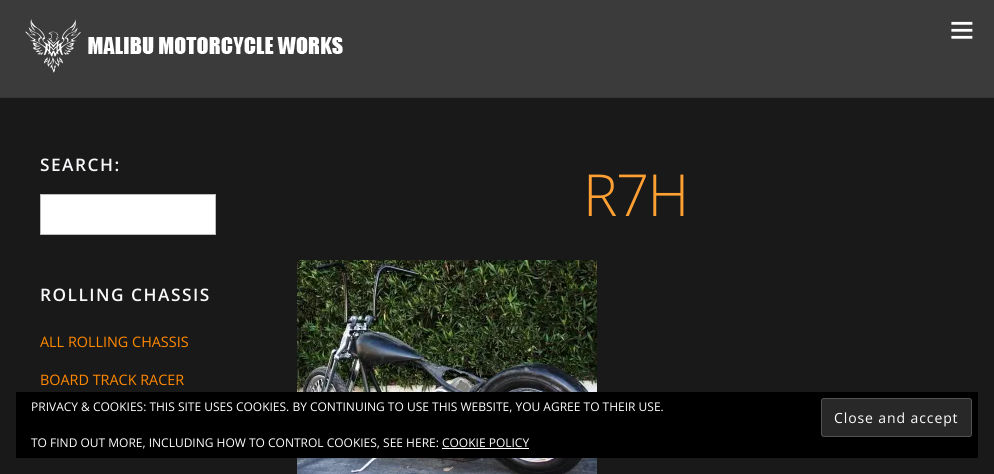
#include <cairo.h>
#include <math.h>
#include <stddef.h>


static void spaced_text(cairo_t *cr, double x, double y, const char *s, double letter, double word) {
    cairo_move_to(cr, x, y);
    while (*s) {
        char ch[5] = {0};
        int n = 0;
        do ch[n++] = *s++; while ((*s & 0xC0) == 0x80);
        cairo_show_text(cr, ch);
        cairo_rel_move_to(cr, letter + word * (*ch == ' '), 0);
    }
}

static void round_rect(cairo_t *cr, double x, double y, double w, double h, double r) {
    cairo_new_sub_path(cr);
    cairo_arc(cr, x + w - r, y + h - r, r, 0, M_PI / 2);
    cairo_arc(cr, x + r, y + h - r, r, M_PI / 2, M_PI);
    cairo_arc(cr, x + r, y + r, r, M_PI, 1.5 * M_PI);
    cairo_arc(cr, x + w - r, y + r, r, 1.5 * M_PI, 2 * M_PI);
    cairo_close_path(cr);
}

static void picture(cairo_t *cr, const char *path, double x, double y, double w, double h) {
    cairo_surface_t *image = cairo_image_surface_create_from_png(path);
    cairo_save(cr);
    cairo_set_source_surface(cr, image, x, y);
    cairo_rectangle(cr, x, y, w, h);
    cairo_fill(cr);
    cairo_restore(cr);
    cairo_surface_destroy(image);
}

int main(void) {
    cairo_surface_t *surface = cairo_image_surface_create(CAIRO_FORMAT_RGB24, 994, 474);
    cairo_t *cr = cairo_create(surface);
    cairo_font_options_t *options = cairo_font_options_create();
    cairo_font_options_set_hint_metrics(options, CAIRO_HINT_METRICS_OFF);
    cairo_font_options_set_hint_style(options, CAIRO_HINT_STYLE_NONE);
    cairo_set_font_options(cr, options);
    cairo_set_miter_limit(cr, 4);
    cairo_set_source_rgb(cr, 0.102, 0.098, 0.098);
    cairo_paint(cr);
    cairo_set_source_rgb(cr, 0.231, 0.231, 0.231);
    cairo_rectangle(cr, 0, 0, 994, 97);
    cairo_fill(cr);
    cairo_set_source_rgb(cr, 0.208, 0.208, 0.208);
    cairo_rectangle(cr, 0, 97, 994, 1);
    cairo_fill(cr);
    picture(cr, "img1.png", 25, 19, 318, 54);
    picture(cr, "img2.png", 951, 21, 22, 18);
    cairo_select_font_face(cr, "Open Sans SemiBold", CAIRO_FONT_SLANT_NORMAL, CAIRO_FONT_WEIGHT_NORMAL);
    cairo_set_font_size(cr, 17.25);
    cairo_set_source_rgb(cr, 0.976, 0.976, 0.988);
    spaced_text(cr, 40, 171, "SEARCH:", 1.5, 0);
    cairo_set_source_rgb(cr, 1, 1, 1);
    cairo_rectangle(cr, 40.5, 194.5, 175, 40);
    cairo_fill_preserve(cr);
    cairo_set_source_rgb(cr, 0.741, 0.741, 0.741);
    cairo_set_line_width(cr, 1);
    cairo_stroke(cr);
    cairo_set_source_rgb(cr, 0.976, 0.976, 0.988);
    spaced_text(cr, 40, 301, "ROLLING CHASSIS", 1.5, 0);
    cairo_select_font_face(cr, "Open Sans", CAIRO_FONT_SLANT_NORMAL, CAIRO_FONT_WEIGHT_NORMAL);
    cairo_set_font_size(cr, 14.4);
    cairo_set_source_rgb(cr, 1, 0.533, 0);
    cairo_move_to(cr, 40, 347);
    cairo_show_text(cr, "ALL ROLLING CHASSIS");
    cairo_move_to(cr, 40, 385);
    cairo_show_text(cr, "BOARD TRACK RACER");
    cairo_select_font_face(cr, "Open Sans Light", CAIRO_FONT_SLANT_NORMAL, CAIRO_FONT_WEIGHT_NORMAL);
    cairo_set_font_size(cr, 58);
    cairo_set_source_rgb(cr, 1, 0.627, 0.2);
    spaced_text(cr, 583, 216, "R7H", -1.5, 0);
    picture(cr, "img3.png", 297, 260, 300, 214);
    cairo_set_source_rgb(cr, 0, 0, 0);
    cairo_rectangle(cr, 16, 392, 962, 66);
    cairo_fill(cr);
    cairo_select_font_face(cr, "Open Sans", CAIRO_FONT_SLANT_NORMAL, CAIRO_FONT_WEIGHT_NORMAL);
    cairo_set_font_size(cr, 12);
    cairo_set_source_rgb(cr, 1, 1, 1);
    cairo_move_to(cr, 31, 411);
    cairo_show_text(cr, "PRIVACY & COOKIES: THIS SITE USES COOKIES. BY CONTINUING TO USE THIS WEBSITE, YOU AGREE TO THEIR USE.");
    cairo_set_source_rgb(cr, 0.157, 0.157, 0.157);
    round_rect(cr, 821.5, 398.5, 150, 38, 2.5);
    cairo_fill_preserve(cr);
    cairo_set_source_rgb(cr, 0.325, 0.325, 0.325);
    cairo_stroke(cr);
    cairo_set_font_size(cr, 14);
    cairo_set_source_rgb(cr, 1, 1, 1);
    spaced_text(cr, 834, 423, "Close and accept", 0.9, 0);
    cairo_set_font_size(cr, 12);
    cairo_move_to(cr, 31, 447);
    cairo_show_text(cr, "TO FIND OUT MORE, INCLUDING HOW TO CONTROL COOKIES, SEE HERE: COOKIE POLICY");
    cairo_rectangle(cr, 442, 448, 87, 1);
    cairo_fill(cr);
    cairo_surface_write_to_png(surface, "page.png");
    cairo_font_options_destroy(options);
    cairo_destroy(cr);
    cairo_surface_destroy(surface);
    return 0;
}
